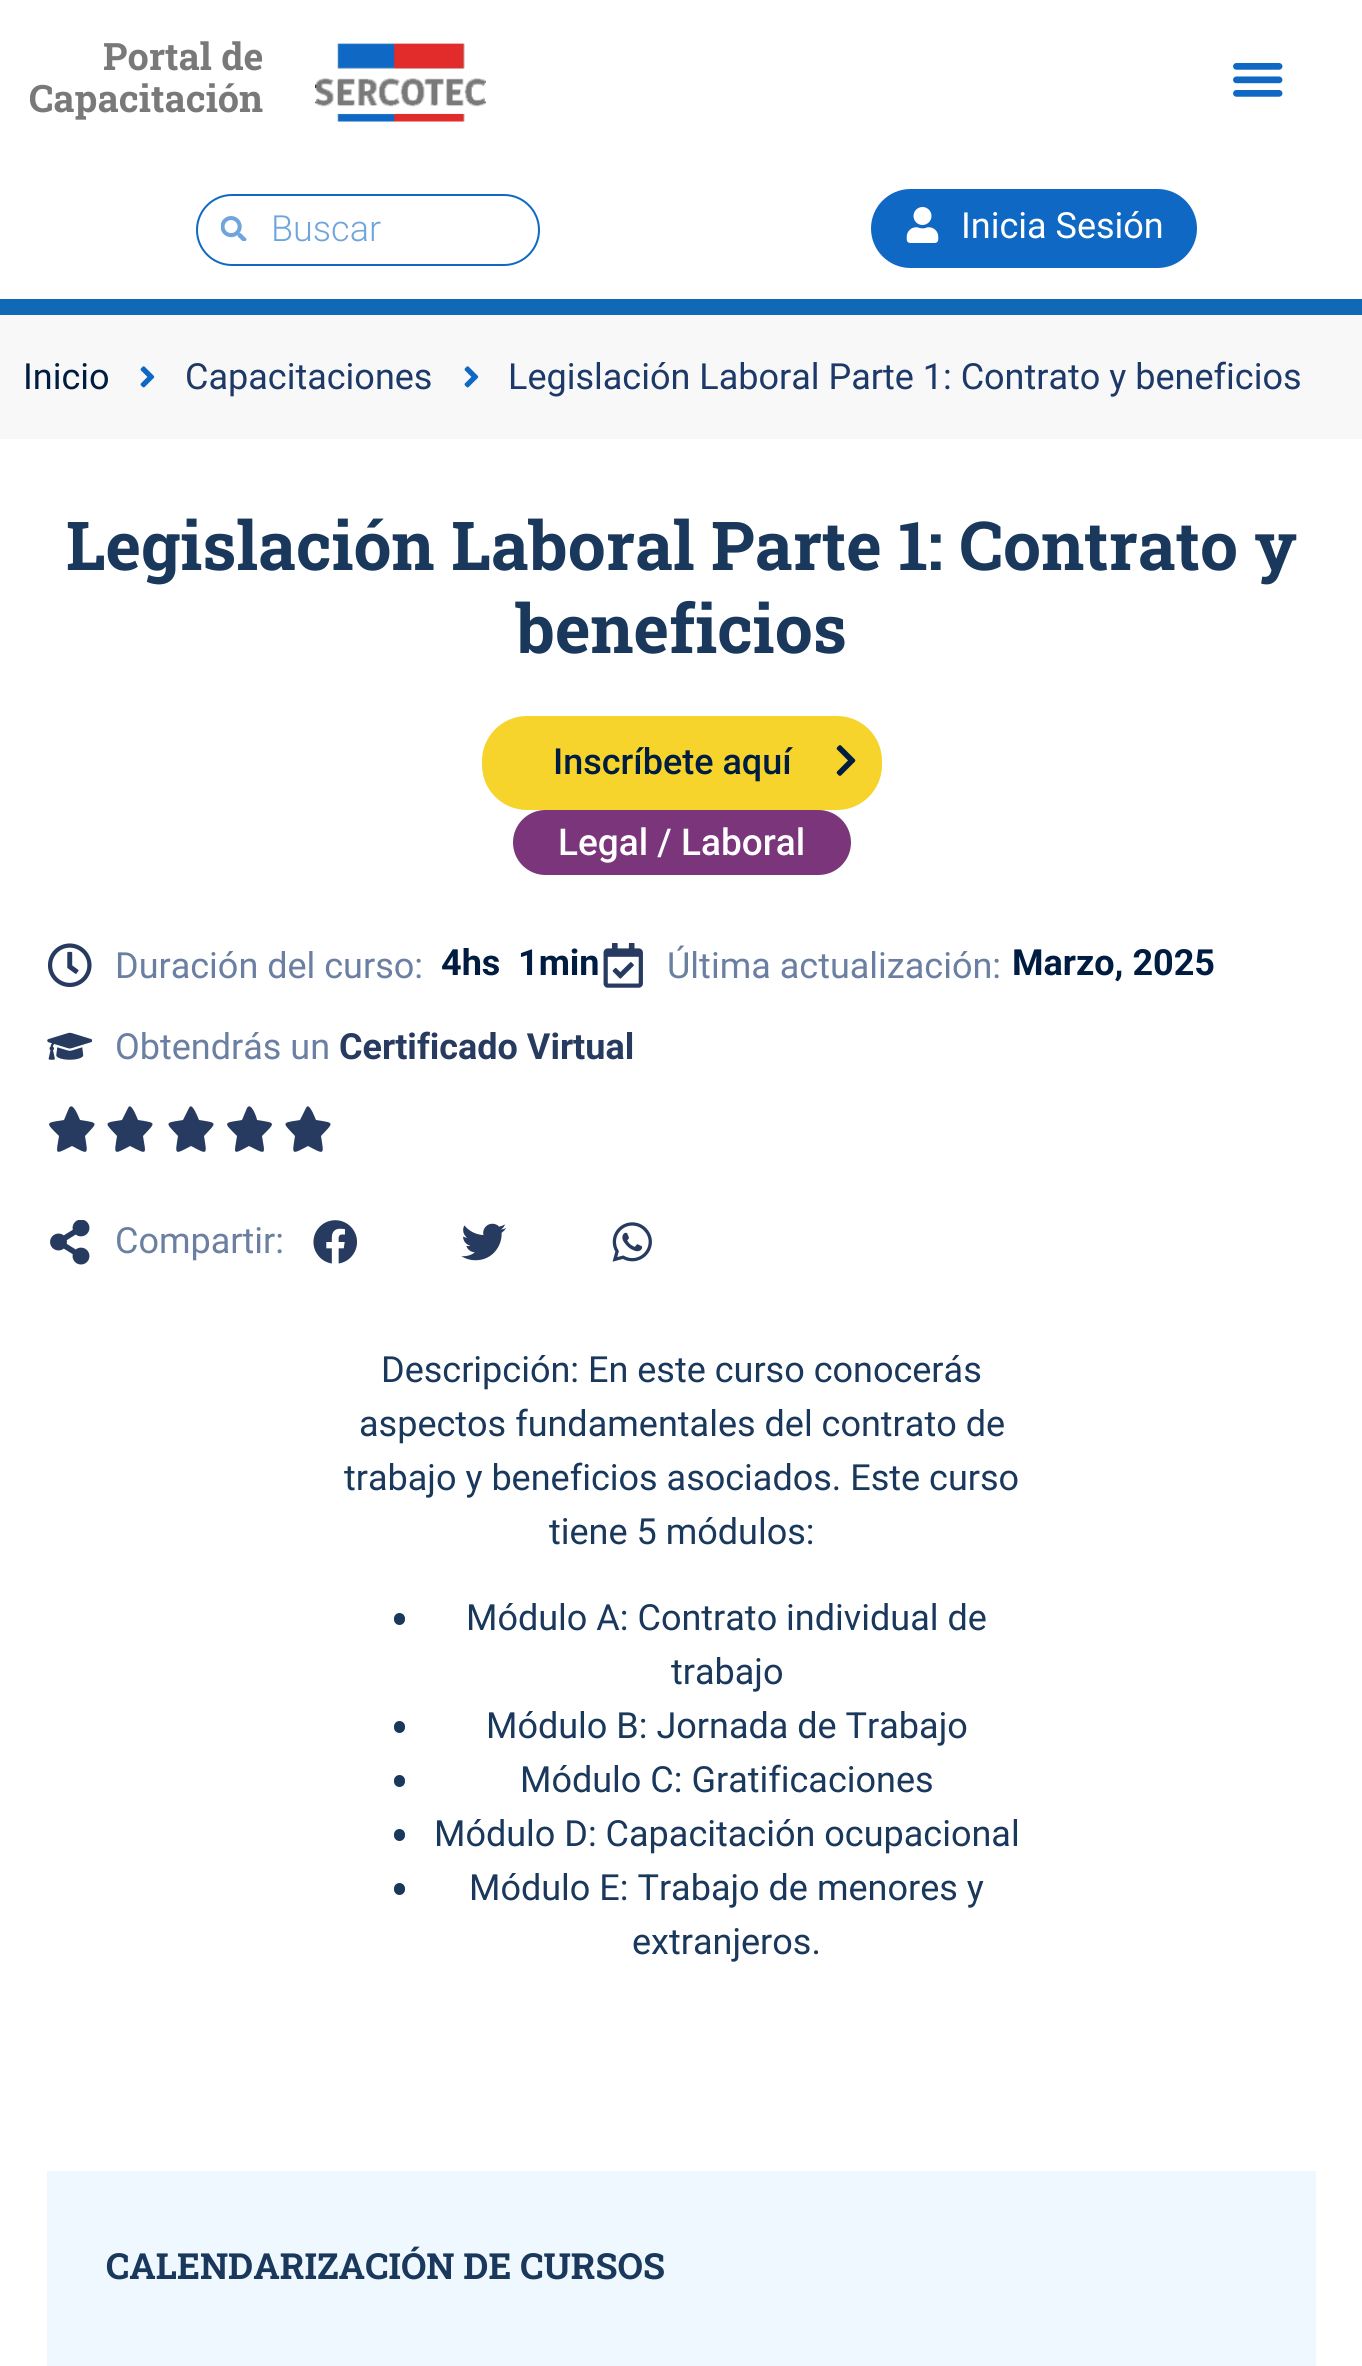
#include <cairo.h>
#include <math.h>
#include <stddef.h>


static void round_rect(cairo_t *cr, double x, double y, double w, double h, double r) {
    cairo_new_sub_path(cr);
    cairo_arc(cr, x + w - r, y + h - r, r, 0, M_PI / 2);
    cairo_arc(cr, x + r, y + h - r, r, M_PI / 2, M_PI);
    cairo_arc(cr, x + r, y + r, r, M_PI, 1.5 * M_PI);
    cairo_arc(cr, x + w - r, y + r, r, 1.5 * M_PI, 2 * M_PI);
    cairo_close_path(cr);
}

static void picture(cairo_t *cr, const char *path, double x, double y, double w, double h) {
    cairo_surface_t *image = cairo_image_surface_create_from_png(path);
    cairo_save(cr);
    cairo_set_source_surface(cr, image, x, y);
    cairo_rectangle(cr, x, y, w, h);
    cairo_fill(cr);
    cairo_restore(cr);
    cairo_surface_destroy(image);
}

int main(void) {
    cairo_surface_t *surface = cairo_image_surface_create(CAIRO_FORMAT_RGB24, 1362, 2366);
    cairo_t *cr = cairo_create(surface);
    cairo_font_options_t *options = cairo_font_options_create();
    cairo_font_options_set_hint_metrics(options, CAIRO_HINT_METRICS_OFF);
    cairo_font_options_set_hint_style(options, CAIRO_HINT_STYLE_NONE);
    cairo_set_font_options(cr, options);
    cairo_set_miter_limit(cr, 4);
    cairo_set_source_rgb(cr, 1, 1, 1);
    cairo_paint(cr);
    cairo_select_font_face(cr, "Roboto Slab", CAIRO_FONT_SLANT_NORMAL, CAIRO_FONT_WEIGHT_BOLD);
    cairo_set_font_size(cr, 37.75);
    cairo_set_source_rgb(cr, 0.478, 0.475, 0.475);
    cairo_move_to(cr, 103, 70);
    cairo_show_text(cr, "Portal de");
    cairo_move_to(cr, 29, 112);
    cairo_show_text(cr, "Capacitación");
    picture(cr, "img1.png", 315, 43, 171, 79);
    picture(cr, "img2.png", 1233, 63, 50, 34);
    cairo_set_source_rgb(cr, 0.059, 0.412, 0.706);
    cairo_rectangle(cr, 0, 299, 1362, 16);
    cairo_fill(cr);
    round_rect(cr, 197, 195, 342, 70, 35);
    cairo_set_source_rgb(cr, 0.059, 0.412, 0.769);
    cairo_stroke(cr);
    picture(cr, "img3.png", 221, 216, 26, 25);
    cairo_select_font_face(cr, "Roboto Light", CAIRO_FONT_SLANT_NORMAL, CAIRO_FONT_WEIGHT_NORMAL);
    cairo_set_font_size(cr, 36);
    cairo_set_source_rgb(cr, 0.435, 0.647, 0.863);
    cairo_move_to(cr, 271, 241);
    cairo_show_text(cr, "Buscar");
    cairo_set_source_rgb(cr, 0.059, 0.412, 0.769);
    round_rect(cr, 871, 189, 326, 79, 39.5);
    cairo_fill(cr);
    picture(cr, "img4.png", 906, 207, 33, 36);
    cairo_select_font_face(cr, "Roboto", CAIRO_FONT_SLANT_NORMAL, CAIRO_FONT_WEIGHT_NORMAL);
    cairo_set_source_rgb(cr, 1, 1, 1);
    cairo_move_to(cr, 961, 238);
    cairo_show_text(cr, "Inicia Sesión");
    cairo_set_source_rgb(cr, 0.969, 0.969, 0.969);
    cairo_rectangle(cr, 0, 315, 1362, 124);
    cairo_fill(cr);
    cairo_set_source_rgb(cr, 0, 0.11, 0.255);
    cairo_move_to(cr, 23, 389);
    cairo_show_text(cr, "Inicio");
    picture(cr, "img5.png", 140, 366, 15, 22);
    cairo_set_source_rgb(cr, 0.11, 0.224, 0.412);
    cairo_move_to(cr, 185, 389);
    cairo_show_text(cr, "Capacitaciones");
    picture(cr, "img5.png", 464, 366, 15, 22);
    cairo_move_to(cr, 508, 389);
    cairo_show_text(cr, "Legislación Laboral Parte 1: Contrato y beneficios");
    cairo_select_font_face(cr, "Roboto Slab", CAIRO_FONT_SLANT_NORMAL, CAIRO_FONT_WEIGHT_BOLD);
    cairo_set_font_size(cr, 67.5);
    cairo_set_source_rgb(cr, 0.098, 0.22, 0.361);
    cairo_move_to(cr, 66, 570);
    cairo_show_text(cr, "Legislación Laboral Parte 1: Contrato y");
    cairo_move_to(cr, 516, 653);
    cairo_show_text(cr, "beneficios");
    cairo_set_source_rgb(cr, 0.961, 0.831, 0.173);
    round_rect(cr, 482, 716, 400, 94, 45);
    cairo_fill(cr);
    cairo_select_font_face(cr, "Roboto Medium", CAIRO_FONT_SLANT_NORMAL, CAIRO_FONT_WEIGHT_NORMAL);
    cairo_set_font_size(cr, 36);
    cairo_set_source_rgb(cr, 0, 0.11, 0.255);
    cairo_move_to(cr, 553, 774);
    cairo_show_text(cr, "Inscríbete aquí");
    picture(cr, "img6.png", 836, 745, 20, 31);
    cairo_set_source_rgb(cr, 0.482, 0.208, 0.482);
    round_rect(cr, 513, 810, 338, 65, 32.5);
    cairo_fill(cr);
    cairo_set_font_size(cr, 37);
    cairo_set_source_rgb(cr, 1, 1, 1);
    cairo_move_to(cr, 558, 855);
    cairo_show_text(cr, "Legal / Laboral");
    picture(cr, "img7.png", 47, 943, 45, 45);
    cairo_select_font_face(cr, "Roboto", CAIRO_FONT_SLANT_NORMAL, CAIRO_FONT_WEIGHT_NORMAL);
    cairo_set_font_size(cr, 36);
    cairo_set_source_rgb(cr, 0.416, 0.498, 0.631);
    cairo_move_to(cr, 115, 978);
    cairo_show_text(cr, "Duración del curso:");
    cairo_select_font_face(cr, "Roboto", CAIRO_FONT_SLANT_NORMAL, CAIRO_FONT_WEIGHT_BOLD);
    cairo_set_source_rgb(cr, 0, 0.11, 0.255);
    cairo_move_to(cr, 441, 975);
    cairo_show_text(cr, "4hs");
    cairo_move_to(cr, 518, 975);
    cairo_show_text(cr, "1min");
    picture(cr, "img8.png", 603, 943, 40, 45);
    cairo_select_font_face(cr, "Roboto", CAIRO_FONT_SLANT_NORMAL, CAIRO_FONT_WEIGHT_NORMAL);
    cairo_set_source_rgb(cr, 0.416, 0.498, 0.631);
    cairo_move_to(cr, 667, 978);
    cairo_show_text(cr, "Última actualización:");
    cairo_select_font_face(cr, "Roboto", CAIRO_FONT_SLANT_NORMAL, CAIRO_FONT_WEIGHT_BOLD);
    cairo_set_source_rgb(cr, 0, 0.11, 0.255);
    cairo_move_to(cr, 1012, 975);
    cairo_show_text(cr, "Marzo, 2025");
    picture(cr, "img9.png", 47, 1032, 45, 28);
    cairo_select_font_face(cr, "Roboto", CAIRO_FONT_SLANT_NORMAL, CAIRO_FONT_WEIGHT_NORMAL);
    cairo_set_source_rgb(cr, 0.416, 0.498, 0.631);
    cairo_move_to(cr, 115, 1059);
    cairo_show_text(cr, "Obtendrás un");
    cairo_select_font_face(cr, "Roboto", CAIRO_FONT_SLANT_NORMAL, CAIRO_FONT_WEIGHT_BOLD);
    cairo_set_source_rgb(cr, 0.153, 0.227, 0.376);
    cairo_move_to(cr, 339, 1059);
    cairo_show_text(cr, "Certificado Virtual");
    cairo_new_path(cr);
    cairo_move_to(cr, 69, 1108);
    cairo_line_to(cr, 64, 1120);
    cairo_curve_to(cr, 45, 1123, 45, 1122, 59, 1136);
    cairo_curve_to(cr, 56, 1155, 54, 1155, 72, 1146);
    cairo_curve_to(cr, 89, 1155, 88, 1155, 85, 1136);
    cairo_curve_to(cr, 98, 1122, 99, 1123, 80, 1120);
    cairo_curve_to(cr, 79, 1118, 73, 1101, 69, 1108);
    cairo_close_path(cr);
    cairo_fill(cr);
    cairo_new_path(cr);
    cairo_move_to(cr, 128, 1108);
    cairo_line_to(cr, 122, 1120);
    cairo_curve_to(cr, 103, 1123, 104, 1122, 117, 1136);
    cairo_curve_to(cr, 114, 1155, 113, 1155, 130, 1146);
    cairo_curve_to(cr, 148, 1155, 146, 1155, 143, 1136);
    cairo_curve_to(cr, 156, 1122, 157, 1123, 138, 1120);
    cairo_curve_to(cr, 137, 1118, 131, 1101, 128, 1108);
    cairo_close_path(cr);
    cairo_fill(cr);
    cairo_new_path(cr);
    cairo_move_to(cr, 189, 1108);
    cairo_line_to(cr, 183, 1120);
    cairo_curve_to(cr, 164, 1123, 165, 1122, 178, 1136);
    cairo_curve_to(cr, 175, 1155, 174, 1155, 191, 1146);
    cairo_curve_to(cr, 208, 1155, 207, 1155, 204, 1136);
    cairo_curve_to(cr, 217, 1122, 218, 1123, 199, 1120);
    cairo_curve_to(cr, 198, 1118, 192, 1101, 189, 1108);
    cairo_close_path(cr);
    cairo_fill(cr);
    cairo_new_path(cr);
    cairo_move_to(cr, 247, 1108);
    cairo_line_to(cr, 242, 1120);
    cairo_curve_to(cr, 223, 1123, 223, 1122, 237, 1136);
    cairo_curve_to(cr, 234, 1155, 232, 1155, 249, 1146);
    cairo_curve_to(cr, 267, 1155, 265, 1155, 262, 1136);
    cairo_curve_to(cr, 276, 1122, 276, 1123, 257, 1120);
    cairo_curve_to(cr, 257, 1118, 251, 1101, 247, 1108);
    cairo_close_path(cr);
    cairo_fill(cr);
    cairo_new_path(cr);
    cairo_move_to(cr, 306, 1108);
    cairo_line_to(cr, 300, 1120);
    cairo_curve_to(cr, 281, 1123, 282, 1122, 295, 1136);
    cairo_curve_to(cr, 292, 1155, 291, 1155, 308, 1146);
    cairo_curve_to(cr, 325, 1155, 324, 1155, 321, 1136);
    cairo_curve_to(cr, 334, 1122, 335, 1123, 316, 1120);
    cairo_curve_to(cr, 315, 1118, 309, 1101, 306, 1108);
    cairo_close_path(cr);
    cairo_fill(cr);
    picture(cr, "img10.png", 50, 1220, 40, 45);
    cairo_select_font_face(cr, "Roboto", CAIRO_FONT_SLANT_NORMAL, CAIRO_FONT_WEIGHT_NORMAL);
    cairo_set_source_rgb(cr, 0.416, 0.498, 0.631);
    cairo_move_to(cr, 115, 1253);
    cairo_show_text(cr, "Compartir:");
    picture(cr, "img11.png", 313, 1220, 45, 44);
    picture(cr, "img12.png", 461, 1223, 45, 38);
    picture(cr, "img13.png", 612, 1222, 40, 40);
    cairo_set_source_rgb(cr, 0.098, 0.22, 0.361);
    cairo_move_to(cr, 381, 1382);
    cairo_show_text(cr, "Descripción: En este curso conocerás");
    cairo_move_to(cr, 359, 1436);
    cairo_show_text(cr, "aspectos fundamentales del contrato de");
    cairo_move_to(cr, 344, 1490);
    cairo_show_text(cr, "trabajo y beneficios asociados. Este curso");
    cairo_move_to(cr, 549, 1544);
    cairo_show_text(cr, "tiene 5 módulos:");
    round_rect(cr, 394, 1613, 11, 12, 5.5);
    cairo_fill(cr);
    cairo_move_to(cr, 466, 1630);
    cairo_show_text(cr, "Módulo A: Contrato individual de");
    cairo_move_to(cr, 671, 1684);
    cairo_show_text(cr, "trabajo");
    round_rect(cr, 394, 1721, 11, 12, 5.5);
    cairo_fill(cr);
    cairo_move_to(cr, 486, 1738);
    cairo_show_text(cr, "Módulo B: Jornada de Trabajo");
    round_rect(cr, 394, 1775, 11, 12, 5.5);
    cairo_fill(cr);
    cairo_move_to(cr, 520, 1792);
    cairo_show_text(cr, "Módulo C: Gratificaciones");
    round_rect(cr, 394, 1829, 11, 12, 5.5);
    cairo_fill(cr);
    cairo_move_to(cr, 434, 1846);
    cairo_show_text(cr, "Módulo D: Capacitación ocupacional");
    round_rect(cr, 394, 1883, 11, 12, 5.5);
    cairo_fill(cr);
    cairo_move_to(cr, 469, 1900);
    cairo_show_text(cr, "Módulo E: Trabajo de menores y");
    cairo_move_to(cr, 632, 1954);
    cairo_show_text(cr, "extranjeros.");
    cairo_set_source_rgb(cr, 0.941, 0.969, 1);
    cairo_rectangle(cr, 47, 2171, 1269, 195);
    cairo_fill(cr);
    cairo_select_font_face(cr, "Roboto Slab", CAIRO_FONT_SLANT_NORMAL, CAIRO_FONT_WEIGHT_BOLD);
    cairo_set_source_rgb(cr, 0.098, 0.22, 0.361);
    cairo_move_to(cr, 106, 2279);
    cairo_show_text(cr, "CALENDARIZACIÓN DE CURSOS");
    cairo_surface_write_to_png(surface, "page.png");
    cairo_font_options_destroy(options);
    cairo_destroy(cr);
    cairo_surface_destroy(surface);
    return 0;
}
